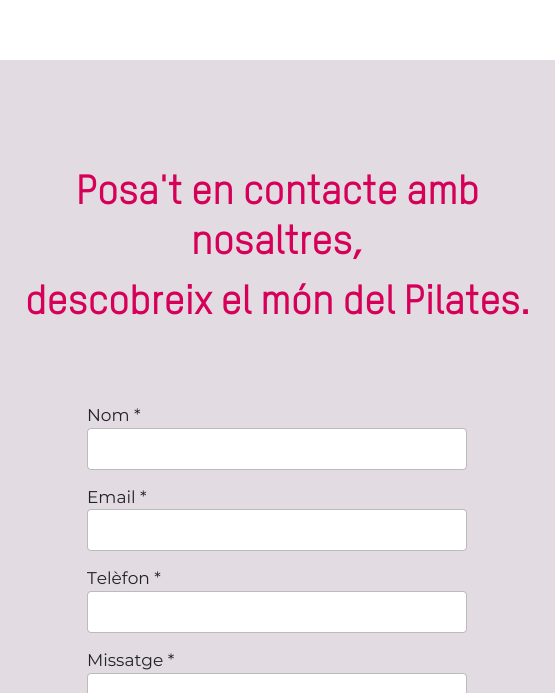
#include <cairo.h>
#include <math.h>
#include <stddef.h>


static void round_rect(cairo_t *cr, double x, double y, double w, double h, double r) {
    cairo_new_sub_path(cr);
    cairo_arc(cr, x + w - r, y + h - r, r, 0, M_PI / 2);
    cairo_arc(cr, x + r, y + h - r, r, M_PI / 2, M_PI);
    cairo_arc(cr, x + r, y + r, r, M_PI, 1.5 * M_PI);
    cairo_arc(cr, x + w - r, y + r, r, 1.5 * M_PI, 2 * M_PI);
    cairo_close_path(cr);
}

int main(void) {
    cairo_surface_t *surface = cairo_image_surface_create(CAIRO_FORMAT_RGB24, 555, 693);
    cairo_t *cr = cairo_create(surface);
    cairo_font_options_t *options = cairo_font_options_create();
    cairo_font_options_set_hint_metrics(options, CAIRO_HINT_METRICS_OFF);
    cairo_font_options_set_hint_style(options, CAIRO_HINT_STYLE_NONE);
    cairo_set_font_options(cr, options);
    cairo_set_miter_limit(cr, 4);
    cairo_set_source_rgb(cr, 1, 1, 1);
    cairo_paint(cr);
    cairo_set_source_rgb(cr, 0.886, 0.859, 0.886);
    cairo_rectangle(cr, 0, 60, 555, 633);
    cairo_fill(cr);
    cairo_select_font_face(cr, "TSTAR", CAIRO_FONT_SLANT_NORMAL, CAIRO_FONT_WEIGHT_BOLD);
    cairo_set_font_size(cr, 40);
    cairo_set_source_rgb(cr, 0.839, 0, 0.349);
    cairo_move_to(cr, 76, 204);
    cairo_show_text(cr, "Posa't en contacte amb");
    cairo_move_to(cr, 191, 254);
    cairo_show_text(cr, "nosaltres,");
    cairo_move_to(cr, 25, 314);
    cairo_show_text(cr, "descobreix el món del Pilates.");
    cairo_select_font_face(cr, "Montserrat", CAIRO_FONT_SLANT_NORMAL, CAIRO_FONT_WEIGHT_NORMAL);
    cairo_set_font_size(cr, 17);
    cairo_set_source_rgb(cr, 0.133, 0.133, 0.133);
    cairo_move_to(cr, 87, 421);
    cairo_show_text(cr, "Nom *");
    cairo_set_source_rgb(cr, 1, 1, 1);
    round_rect(cr, 87.5, 428.5, 379, 41, 3.5);
    cairo_fill_preserve(cr);
    cairo_set_source_rgb(cr, 0.733, 0.733, 0.733);
    cairo_set_line_width(cr, 1);
    cairo_stroke(cr);
    cairo_set_source_rgb(cr, 0.133, 0.133, 0.133);
    cairo_move_to(cr, 87, 503);
    cairo_show_text(cr, "Email *");
    cairo_set_source_rgb(cr, 1, 1, 1);
    round_rect(cr, 87.5, 509.5, 379, 41, 3.5);
    cairo_fill_preserve(cr);
    cairo_set_source_rgb(cr, 0.733, 0.733, 0.733);
    cairo_stroke(cr);
    cairo_set_source_rgb(cr, 0.133, 0.133, 0.133);
    cairo_move_to(cr, 87, 584);
    cairo_show_text(cr, "Telèfon *");
    cairo_set_source_rgb(cr, 1, 1, 1);
    round_rect(cr, 87.5, 591.5, 379, 41, 3.5);
    cairo_fill_preserve(cr);
    cairo_set_source_rgb(cr, 0.733, 0.733, 0.733);
    cairo_stroke(cr);
    cairo_set_source_rgb(cr, 0.133, 0.133, 0.133);
    cairo_move_to(cr, 87, 666);
    cairo_show_text(cr, "Missatge *");
    cairo_set_source_rgb(cr, 1, 1, 1);
    round_rect(cr, 87.5, 673.5, 379, 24, 3.5);
    cairo_fill_preserve(cr);
    cairo_set_source_rgb(cr, 0.733, 0.733, 0.733);
    cairo_stroke(cr);
    cairo_surface_write_to_png(surface, "page.png");
    cairo_font_options_destroy(options);
    cairo_destroy(cr);
    cairo_surface_destroy(surface);
    return 0;
}
